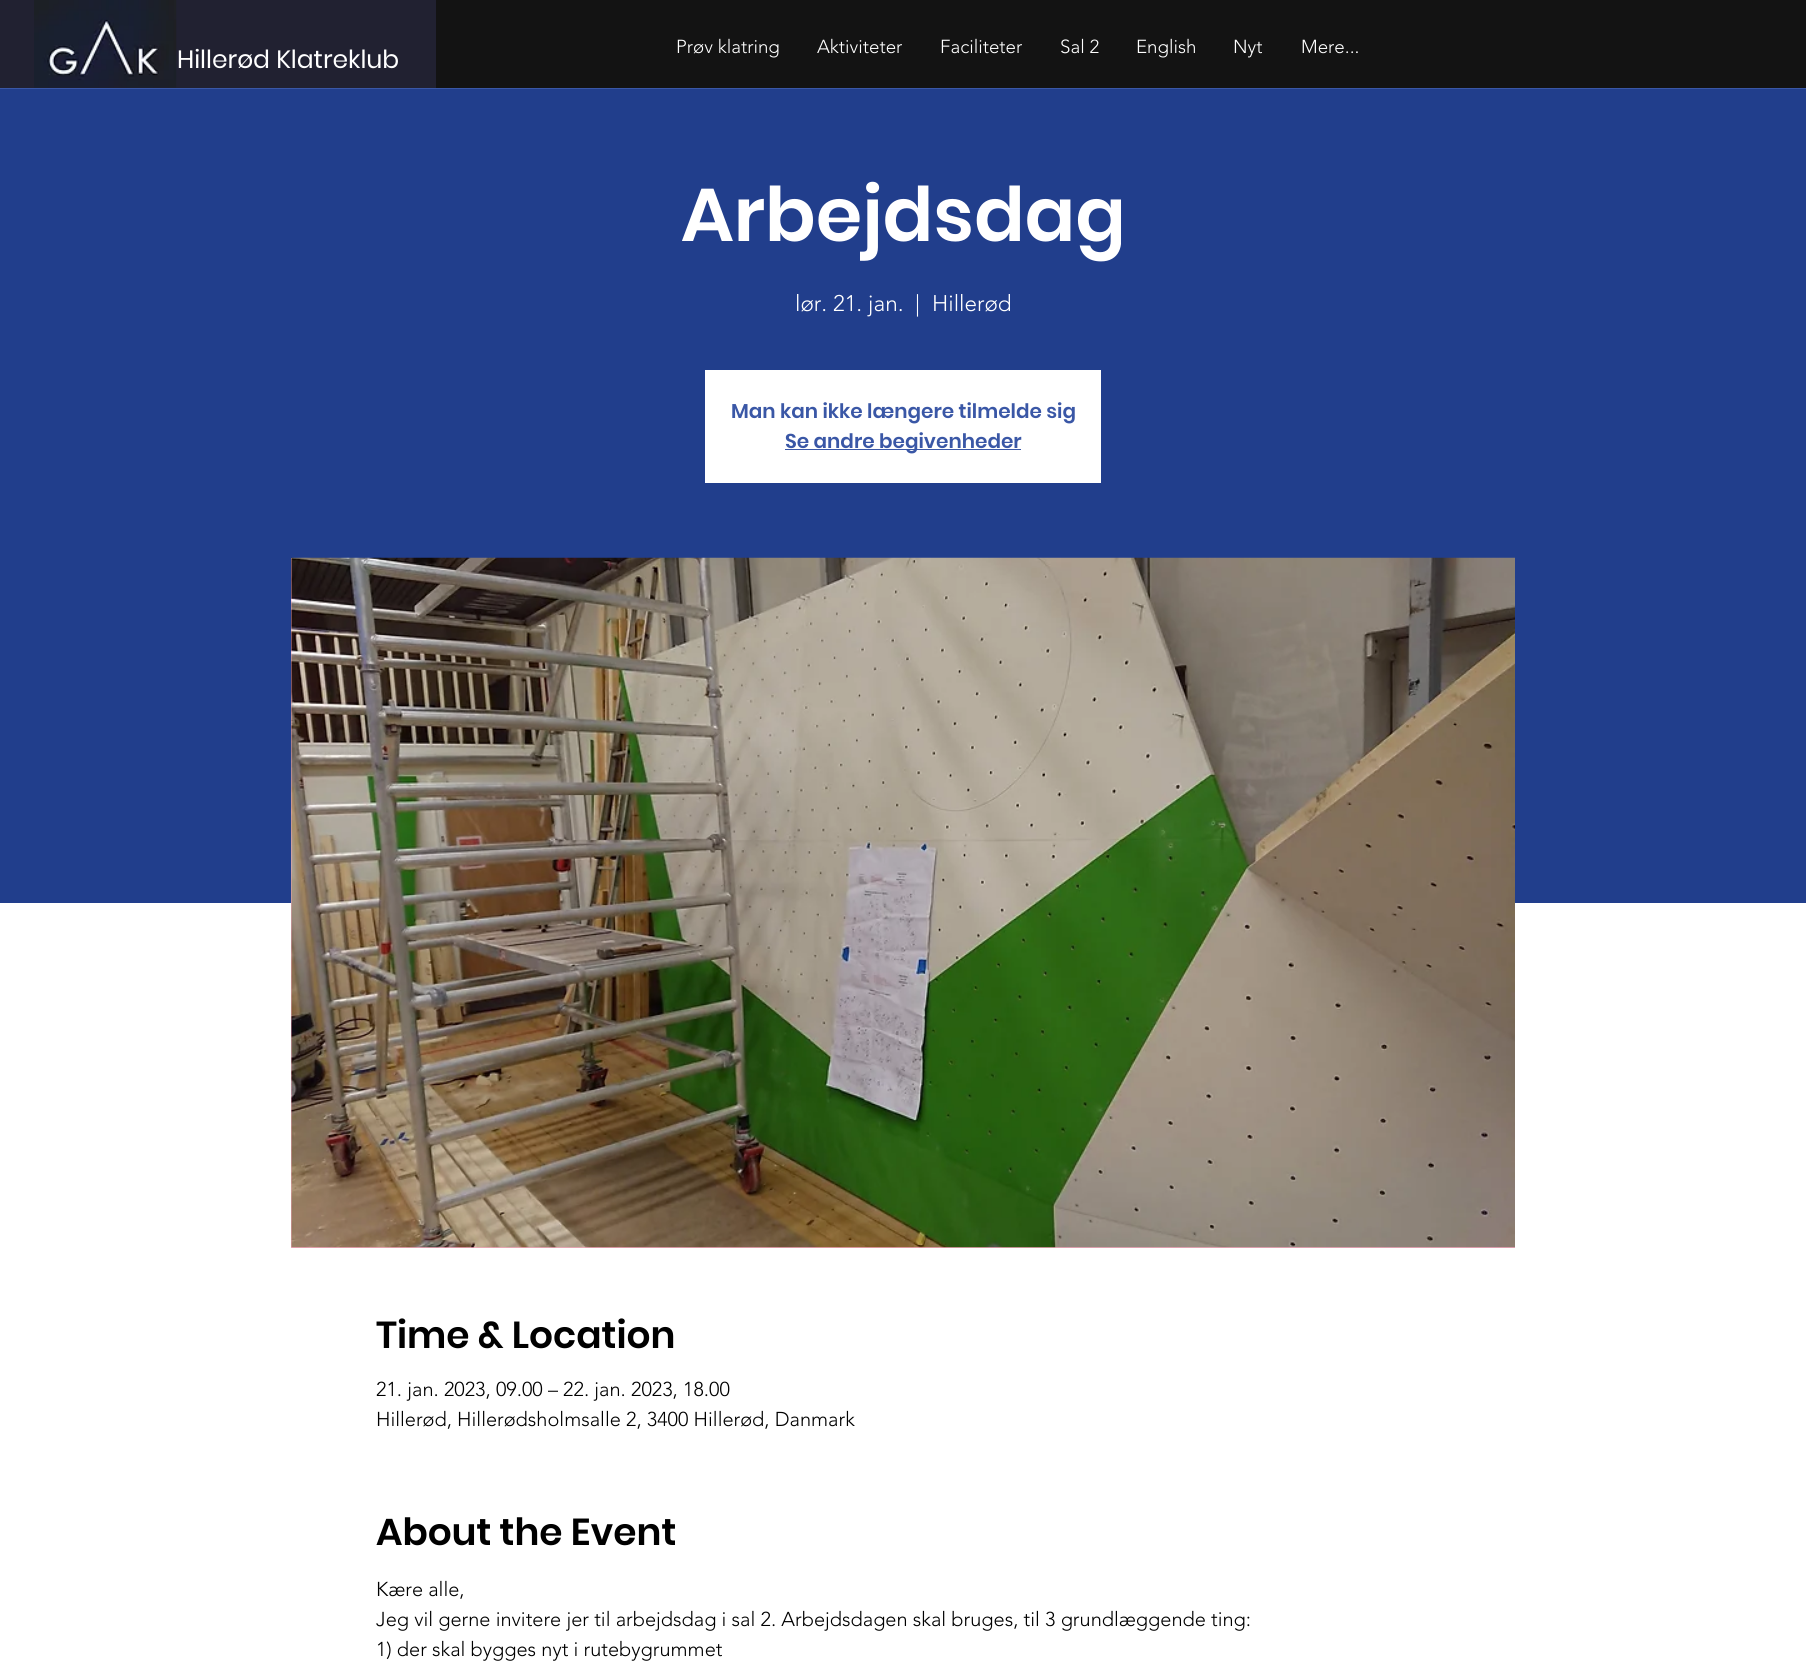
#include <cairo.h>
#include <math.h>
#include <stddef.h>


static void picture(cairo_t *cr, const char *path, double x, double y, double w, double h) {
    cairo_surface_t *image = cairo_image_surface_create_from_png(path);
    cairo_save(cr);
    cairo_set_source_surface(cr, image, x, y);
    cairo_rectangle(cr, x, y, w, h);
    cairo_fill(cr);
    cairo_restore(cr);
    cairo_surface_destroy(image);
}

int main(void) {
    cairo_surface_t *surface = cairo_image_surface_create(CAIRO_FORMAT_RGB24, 1806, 1668);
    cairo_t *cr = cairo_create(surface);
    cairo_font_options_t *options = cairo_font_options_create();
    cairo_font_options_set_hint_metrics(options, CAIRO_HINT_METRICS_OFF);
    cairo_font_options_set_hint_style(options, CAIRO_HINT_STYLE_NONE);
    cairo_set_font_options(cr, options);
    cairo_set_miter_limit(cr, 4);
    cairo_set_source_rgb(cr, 0.227, 0.341, 0.651);
    cairo_paint(cr);
    cairo_set_source_rgb(cr, 0.129, 0.129, 0.192);
    cairo_rectangle(cr, 0, 0, 436, 88);
    cairo_fill(cr);
    picture(cr, "img1.png", 34, 0, 143, 88);
    cairo_select_font_face(cr, "Poppins", CAIRO_FONT_SLANT_NORMAL, CAIRO_FONT_WEIGHT_NORMAL);
    cairo_set_font_size(cr, 25);
    cairo_set_source_rgb(cr, 1, 1, 1);
    cairo_move_to(cr, 177, 68);
    cairo_show_text(cr, "Hillerød Klatreklub");
    cairo_set_source_rgb(cr, 0.075, 0.075, 0.075);
    cairo_rectangle(cr, 436, 0, 1370, 88);
    cairo_fill(cr);
    cairo_select_font_face(cr, "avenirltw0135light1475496 Light", CAIRO_FONT_SLANT_NORMAL, CAIRO_FONT_WEIGHT_NORMAL);
    cairo_set_font_size(cr, 18.75);
    cairo_set_source_rgb(cr, 1, 1, 1);
    cairo_move_to(cr, 676, 53);
    cairo_show_text(cr, "Prøv klatring");
    cairo_move_to(cr, 817, 53);
    cairo_show_text(cr, "Aktiviteter");
    cairo_move_to(cr, 940, 53);
    cairo_show_text(cr, "Faciliteter");
    cairo_move_to(cr, 1060, 53);
    cairo_show_text(cr, "Sal 2");
    cairo_move_to(cr, 1136, 53);
    cairo_show_text(cr, "English");
    cairo_move_to(cr, 1233, 53);
    cairo_show_text(cr, "Nyt");
    cairo_move_to(cr, 1301, 53);
    cairo_show_text(cr, "Mere...");
    cairo_set_source_rgb(cr, 0.129, 0.243, 0.549);
    cairo_rectangle(cr, 0, 89, 1806, 814);
    cairo_fill(cr);
    cairo_select_font_face(cr, "Poppins SemiBold", CAIRO_FONT_SLANT_NORMAL, CAIRO_FONT_WEIGHT_NORMAL);
    cairo_set_font_size(cr, 75);
    cairo_set_source_rgb(cr, 1, 1, 1);
    cairo_move_to(cr, 681, 241);
    cairo_show_text(cr, "Arbejdsdag");
    cairo_select_font_face(cr, "avenirltw0135light1475496 Light", CAIRO_FONT_SLANT_NORMAL, CAIRO_FONT_WEIGHT_NORMAL);
    cairo_set_font_size(cr, 22.5);
    cairo_move_to(cr, 795, 311);
    cairo_show_text(cr, "lør. 21. jan.");
    cairo_move_to(cr, 915, 311);
    cairo_show_text(cr, "|");
    cairo_move_to(cr, 932, 311);
    cairo_show_text(cr, "Hillerød");
    cairo_rectangle(cr, 705, 370, 396, 113);
    cairo_fill(cr);
    cairo_select_font_face(cr, "Poppins SemiBold", CAIRO_FONT_SLANT_NORMAL, CAIRO_FONT_WEIGHT_NORMAL);
    cairo_set_font_size(cr, 20);
    cairo_set_source_rgb(cr, 0.227, 0.341, 0.651);
    cairo_move_to(cr, 731, 418);
    cairo_show_text(cr, "Man kan ikke længere tilmelde sig");
    cairo_rectangle(cr, 785, 449, 236, 1);
    cairo_fill(cr);
    cairo_move_to(cr, 785, 448);
    cairo_show_text(cr, "Se andre begivenheder");
    cairo_set_source_rgb(cr, 1, 1, 1);
    cairo_rectangle(cr, 0, 903, 1806, 765);
    cairo_fill(cr);
    cairo_set_source_rgb(cr, 0.961, 0.651, 0.741);
    cairo_rectangle(cr, 291, 558, 1224, 690);
    cairo_fill(cr);
    picture(cr, "img2.png", 291, 557, 1224, 691);
    cairo_set_font_size(cr, 37.5);
    cairo_set_source_rgb(cr, 0, 0, 0);
    cairo_move_to(cr, 376, 1348);
    cairo_show_text(cr, "Time & Location");
    cairo_select_font_face(cr, "avenirltw0135light1475496 Light", CAIRO_FONT_SLANT_NORMAL, CAIRO_FONT_WEIGHT_NORMAL);
    cairo_set_font_size(cr, 20);
    cairo_move_to(cr, 376, 1396);
    cairo_show_text(cr, "21. jan. 2023, 09.00 – 22. jan. 2023, 18.00");
    cairo_move_to(cr, 376, 1426);
    cairo_show_text(cr, "Hillerød, Hillerødsholmsalle 2, 3400 Hillerød, Danmark");
    cairo_select_font_face(cr, "Poppins SemiBold", CAIRO_FONT_SLANT_NORMAL, CAIRO_FONT_WEIGHT_NORMAL);
    cairo_set_font_size(cr, 37.5);
    cairo_move_to(cr, 376, 1545);
    cairo_show_text(cr, "About the Event");
    cairo_select_font_face(cr, "avenirltw0135light1475496 Light", CAIRO_FONT_SLANT_NORMAL, CAIRO_FONT_WEIGHT_NORMAL);
    cairo_set_font_size(cr, 20);
    cairo_move_to(cr, 376, 1596);
    cairo_show_text(cr, "Kære alle,");
    cairo_move_to(cr, 376, 1626);
    cairo_show_text(cr, "Jeg vil gerne invitere jer til arbejdsdag i sal 2. Arbejdsdagen skal bruges, til 3 grundlæggende ting:");
    cairo_move_to(cr, 376, 1656);
    cairo_show_text(cr, "1) der skal bygges nyt i rutebygrummet");
    cairo_surface_write_to_png(surface, "page.png");
    cairo_font_options_destroy(options);
    cairo_destroy(cr);
    cairo_surface_destroy(surface);
    return 0;
}
